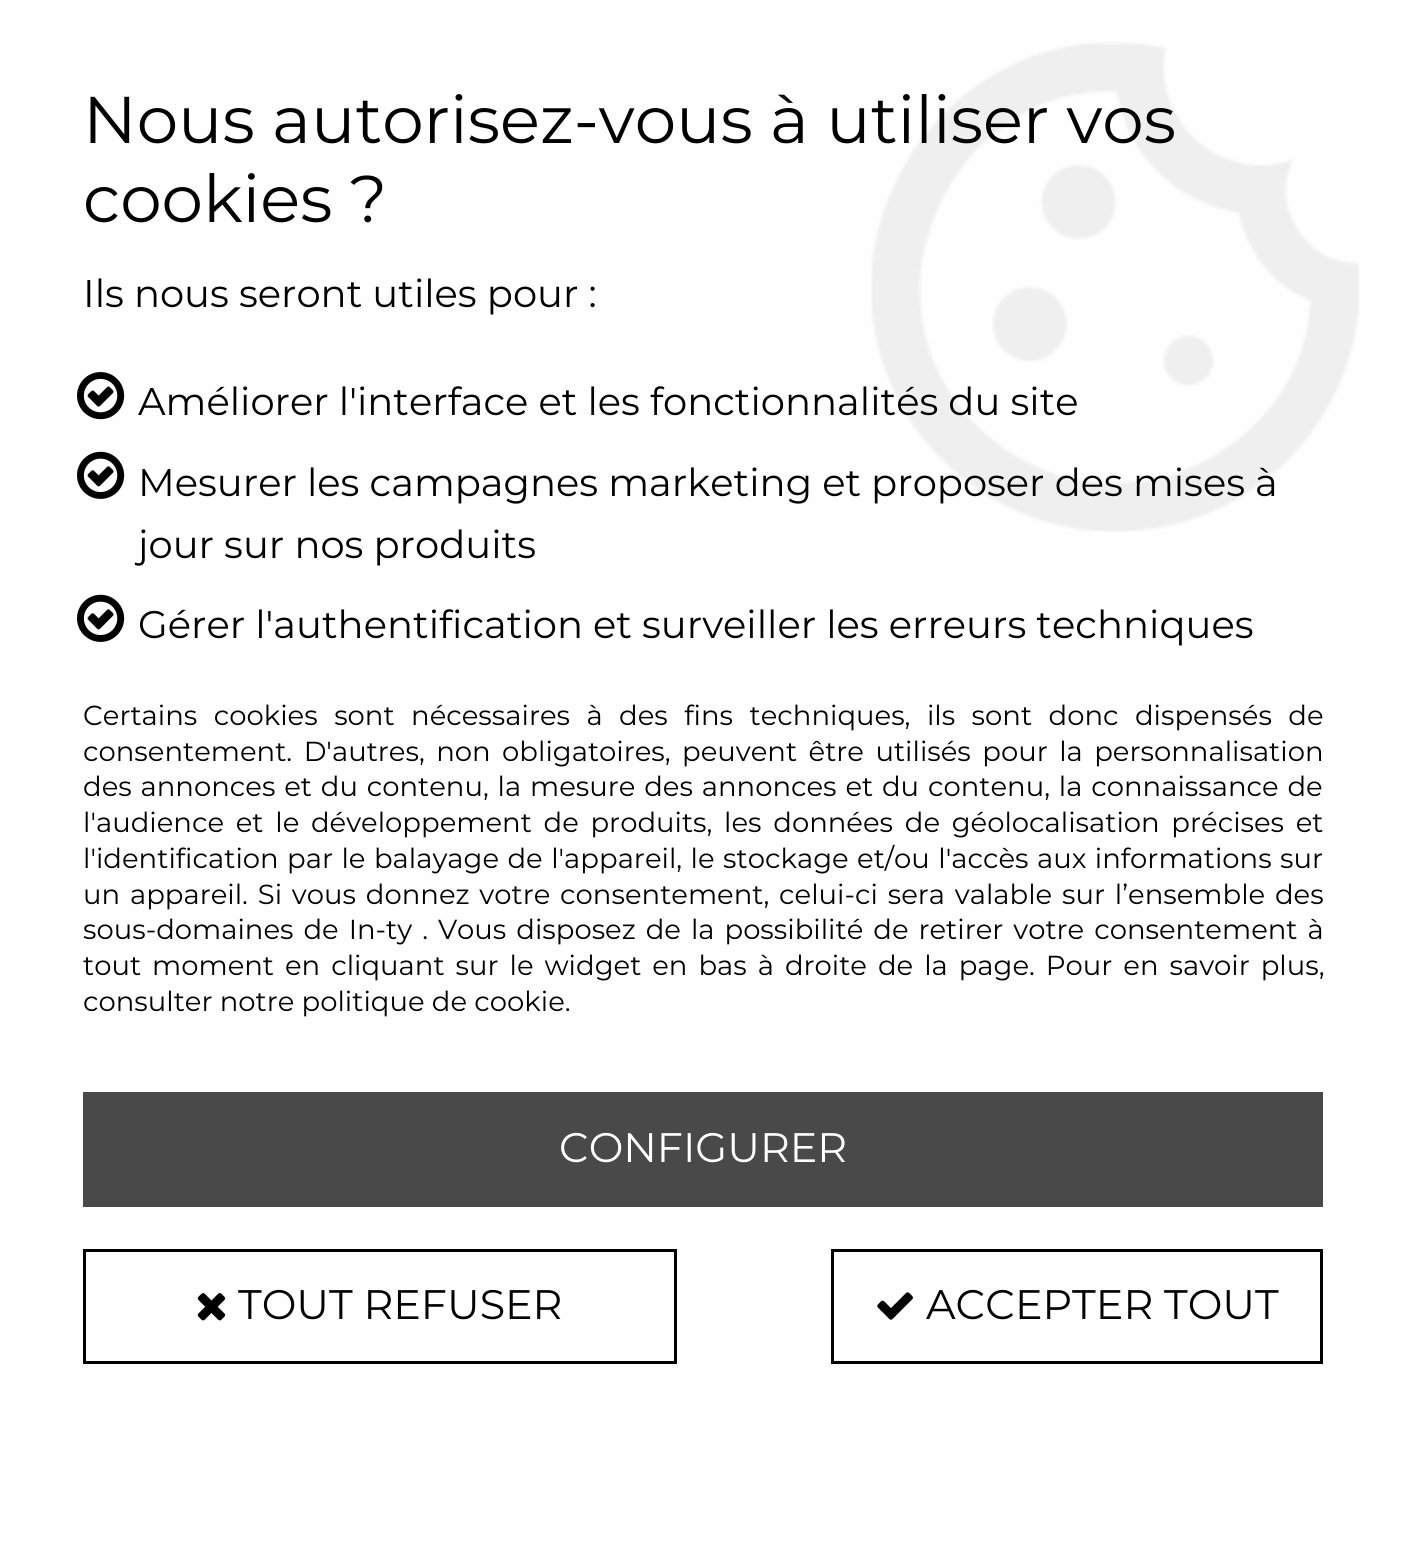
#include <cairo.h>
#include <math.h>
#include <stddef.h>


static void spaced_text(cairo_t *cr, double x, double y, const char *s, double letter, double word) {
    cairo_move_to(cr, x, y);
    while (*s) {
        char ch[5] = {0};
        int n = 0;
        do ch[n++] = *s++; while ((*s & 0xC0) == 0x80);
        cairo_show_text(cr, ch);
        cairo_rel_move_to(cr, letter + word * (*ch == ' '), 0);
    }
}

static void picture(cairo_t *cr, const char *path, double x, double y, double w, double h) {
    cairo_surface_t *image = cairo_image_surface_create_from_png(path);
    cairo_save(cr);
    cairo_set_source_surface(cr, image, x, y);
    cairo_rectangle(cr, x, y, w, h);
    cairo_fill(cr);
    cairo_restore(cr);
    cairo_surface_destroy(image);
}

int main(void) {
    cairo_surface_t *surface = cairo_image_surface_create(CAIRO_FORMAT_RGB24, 1404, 1547);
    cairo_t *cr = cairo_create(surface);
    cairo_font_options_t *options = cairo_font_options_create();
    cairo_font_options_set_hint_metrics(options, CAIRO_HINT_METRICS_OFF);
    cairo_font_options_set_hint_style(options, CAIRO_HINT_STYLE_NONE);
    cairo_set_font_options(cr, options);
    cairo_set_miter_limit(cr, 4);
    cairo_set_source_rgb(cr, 0.996, 0.996, 0.996);
    cairo_paint(cr);
    picture(cr, "img1.png", 871, 41, 489, 491);
    cairo_select_font_face(cr, "Montserrat", CAIRO_FONT_SLANT_NORMAL, CAIRO_FONT_WEIGHT_NORMAL);
    cairo_set_font_size(cr, 66);
    cairo_set_source_rgb(cr, 0, 0, 0);
    cairo_move_to(cr, 83, 143);
    cairo_show_text(cr, "Nous autorisez-vous à utiliser vos");
    cairo_move_to(cr, 83, 222);
    cairo_show_text(cr, "cookies ?");
    cairo_set_font_size(cr, 38.5);
    cairo_move_to(cr, 83, 307);
    cairo_show_text(cr, "Ils nous seront utiles pour :");
    picture(cr, "img2.png", 77, 372, 48, 48);
    cairo_move_to(cr, 138, 415);
    cairo_show_text(cr, "Améliorer l'interface et les fonctionnalités du site");
    picture(cr, "img3.png", 77, 451, 48, 48);
    cairo_move_to(cr, 138, 496);
    cairo_show_text(cr, "Mesurer les campagnes marketing et proposer des mises à");
    cairo_move_to(cr, 138, 558);
    cairo_show_text(cr, "jour sur nos produits");
    picture(cr, "img3.png", 77, 594, 48, 48);
    cairo_move_to(cr, 138, 638);
    cairo_show_text(cr, "Gérer l'authentification et surveiller les erreurs techniques");
    cairo_set_font_size(cr, 27.5);
    spaced_text(cr, 83, 725, "Certains cookies sont nécessaires à des fins techniques, ils sont donc dispensés de", 0, 9.25);
    spaced_text(cr, 83, 761, "consentement. D'autres, non obligatoires, peuvent être utilisés pour la personnalisation", 0, 4.25);
    spaced_text(cr, 83, 796, "des annonces et du contenu, la mesure des annonces et du contenu, la connaissance de", 0, 1.6);
    spaced_text(cr, 83, 832, "l'audience et le développement de produits, les données de géolocalisation précises et", 0, 4.5);
    spaced_text(cr, 83, 868, "l'identification par le balayage de l'appareil, le stockage et/ou l'accès aux informations sur", 0, 1.25);
    spaced_text(cr, 83, 904, "un appareil. Si vous donnez votre consentement, celui-ci sera valable sur l’ensemble des", 0, 2.6);
    spaced_text(cr, 83, 939, "sous-domaines de In-ty . Vous disposez de la possibilité de retirer votre consentement à", 0, 2.75);
    spaced_text(cr, 83, 975, "tout moment en cliquant sur le widget en bas à droite de la page. Pour en savoir plus,", 0, 3.75);
    cairo_move_to(cr, 83, 1011);
    cairo_show_text(cr, "consulter notre politique de cookie.");
    cairo_set_source_rgb(cr, 0.29, 0.286, 0.286);
    cairo_rectangle(cr, 83, 1092, 1240, 115);
    cairo_fill(cr);
    cairo_set_font_size(cr, 41.25);
    cairo_set_source_rgb(cr, 1, 1, 1);
    cairo_move_to(cr, 559, 1162);
    cairo_show_text(cr, "CONFIGURER");
    cairo_rectangle(cr, 84.5, 1250.5, 591, 112);
    cairo_set_source_rgb(cr, 0, 0, 0);
    cairo_set_line_width(cr, 3);
    cairo_stroke(cr);
    picture(cr, "img4.png", 197, 1293, 29, 28);
    cairo_move_to(cr, 238, 1319);
    cairo_show_text(cr, "TOUT REFUSER");
    cairo_rectangle(cr, 832.5, 1250.5, 489, 112);
    cairo_stroke(cr);
    picture(cr, "img5.png", 877, 1292, 36, 28);
    cairo_move_to(cr, 926, 1319);
    cairo_show_text(cr, "ACCEPTER TOUT");
    cairo_surface_write_to_png(surface, "page.png");
    cairo_font_options_destroy(options);
    cairo_destroy(cr);
    cairo_surface_destroy(surface);
    return 0;
}
